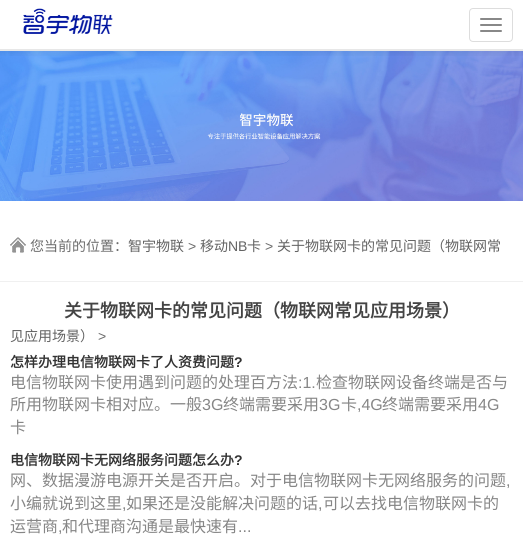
#include <cairo.h>
#include <math.h>
#include <stddef.h>


static void round_rect(cairo_t *cr, double x, double y, double w, double h, double r) {
    cairo_new_sub_path(cr);
    cairo_arc(cr, x + w - r, y + h - r, r, 0, M_PI / 2);
    cairo_arc(cr, x + r, y + h - r, r, M_PI / 2, M_PI);
    cairo_arc(cr, x + r, y + r, r, M_PI, 1.5 * M_PI);
    cairo_arc(cr, x + w - r, y + r, r, 1.5 * M_PI, 2 * M_PI);
    cairo_close_path(cr);
}

static void shadow(cairo_t *cr, double x, double y, double w, double h, double r, double blur, double alpha) {
    cairo_push_group_with_content(cr, CAIRO_CONTENT_ALPHA);
    cairo_set_operator(cr, CAIRO_OPERATOR_SOURCE);
    for (int i = 15; i >= -15 && fmin(w, h) + blur * i / 3 > 0; i -= 2) {
        double e = blur * i / 6;
        cairo_set_source_rgba(cr, 0, 0, 0, alpha * erfc((i - 1) / 8.5) / 2);
        round_rect(cr, x - e, y - e, w + 2 * e, h + 2 * e, fmax(0, fmin(r + e + blur * .6, fmin(w, h) / 2 + e)));
        cairo_fill(cr);
    }
    cairo_pattern_t *soft = cairo_pop_group(cr);
    cairo_mask(cr, soft);
    cairo_pattern_destroy(soft);
}

static void picture(cairo_t *cr, const char *path, double x, double y, double w, double h) {
    cairo_surface_t *image = cairo_image_surface_create_from_png(path);
    cairo_save(cr);
    cairo_set_source_surface(cr, image, x, y);
    cairo_rectangle(cr, x, y, w, h);
    cairo_fill(cr);
    cairo_restore(cr);
    cairo_surface_destroy(image);
}

int main(void) {
    cairo_surface_t *surface = cairo_image_surface_create(CAIRO_FORMAT_RGB24, 523, 549);
    cairo_t *cr = cairo_create(surface);
    cairo_font_options_t *options = cairo_font_options_create();
    cairo_font_options_set_hint_metrics(options, CAIRO_HINT_METRICS_OFF);
    cairo_font_options_set_hint_style(options, CAIRO_HINT_STYLE_NONE);
    cairo_set_font_options(cr, options);
    cairo_set_miter_limit(cr, 4);
    cairo_set_source_rgb(cr, 1, 1, 1);
    cairo_paint(cr);
    picture(cr, "img2.png", 0, 51, 523, 150);
    cairo_save(cr);
    cairo_rectangle(cr, 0, 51, 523, 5);
    cairo_clip(cr);
    cairo_set_source_rgb(cr, 0, 0, 0);
    shadow(cr, 0, 3, 523, 50, 0, 4, 0.08);
    cairo_restore(cr);
    cairo_set_source_rgb(cr, 0.906, 0.906, 0.906);
    cairo_rectangle(cr, 0, 49, 523, 2);
    cairo_fill(cr);
    picture(cr, "img1.png", 23, 8, 90, 26);
    round_rect(cr, 469.5, 8.5, 43, 33, 3.5);
    cairo_set_source_rgb(cr, 0.867, 0.867, 0.867);
    cairo_set_line_width(cr, 1);
    cairo_stroke(cr);
    cairo_set_source_rgb(cr, 0.533, 0.533, 0.533);
    round_rect(cr, 480, 18, 22, 2, 1);
    cairo_fill(cr);
    round_rect(cr, 480, 24, 22, 2, 1);
    cairo_fill(cr);
    round_rect(cr, 480, 30, 22, 2, 1);
    cairo_fill(cr);
    picture(cr, "img3.png", 10, 237, 16, 16);
    cairo_select_font_face(cr, "Noto Sans CJK SC", CAIRO_FONT_SLANT_NORMAL, CAIRO_FONT_WEIGHT_NORMAL);
    cairo_set_font_size(cr, 14);
    cairo_set_source_rgb(cr, 0.424, 0.424, 0.424);
    cairo_move_to(cr, 30, 251);
    cairo_show_text(cr, "您当前的位置：");
    cairo_set_source_rgb(cr, 0.388, 0.388, 0.388);
    cairo_move_to(cr, 128, 251);
    cairo_show_text(cr, "智宇物联");
    cairo_select_font_face(cr, "Liberation Sans", CAIRO_FONT_SLANT_NORMAL, CAIRO_FONT_WEIGHT_NORMAL);
    cairo_set_source_rgb(cr, 0.424, 0.424, 0.424);
    cairo_move_to(cr, 188, 251);
    cairo_show_text(cr, ">");
    cairo_select_font_face(cr, "Noto Sans CJK SC", CAIRO_FONT_SLANT_NORMAL, CAIRO_FONT_WEIGHT_NORMAL);
    cairo_set_source_rgb(cr, 0.388, 0.388, 0.388);
    cairo_move_to(cr, 200, 251);
    cairo_show_text(cr, "移动");
    cairo_select_font_face(cr, "Liberation Sans", CAIRO_FONT_SLANT_NORMAL, CAIRO_FONT_WEIGHT_NORMAL);
    cairo_move_to(cr, 228, 251);
    cairo_show_text(cr, "NB");
    cairo_select_font_face(cr, "Noto Sans CJK SC", CAIRO_FONT_SLANT_NORMAL, CAIRO_FONT_WEIGHT_NORMAL);
    cairo_move_to(cr, 247, 251);
    cairo_show_text(cr, "卡");
    cairo_select_font_face(cr, "Liberation Sans", CAIRO_FONT_SLANT_NORMAL, CAIRO_FONT_WEIGHT_NORMAL);
    cairo_set_source_rgb(cr, 0.424, 0.424, 0.424);
    cairo_move_to(cr, 265, 251);
    cairo_show_text(cr, ">");
    cairo_select_font_face(cr, "Noto Sans CJK SC", CAIRO_FONT_SLANT_NORMAL, CAIRO_FONT_WEIGHT_NORMAL);
    cairo_set_source_rgb(cr, 0.388, 0.388, 0.388);
    cairo_move_to(cr, 277, 251);
    cairo_show_text(cr, "关于物联网卡的常见问题（物联网常");
    cairo_move_to(cr, 10, 341);
    cairo_show_text(cr, "见应用场景）");
    cairo_select_font_face(cr, "Liberation Sans", CAIRO_FONT_SLANT_NORMAL, CAIRO_FONT_WEIGHT_NORMAL);
    cairo_set_source_rgb(cr, 0.424, 0.424, 0.424);
    cairo_move_to(cr, 98, 341);
    cairo_show_text(cr, ">");
    cairo_set_source_rgb(cr, 0.941, 0.941, 0.941);
    cairo_rectangle(cr, 0, 281, 523, 1);
    cairo_fill(cr);
    cairo_select_font_face(cr, "Noto Sans CJK SC", CAIRO_FONT_SLANT_NORMAL, CAIRO_FONT_WEIGHT_BOLD);
    cairo_set_font_size(cr, 18);
    cairo_set_source_rgb(cr, 0.267, 0.267, 0.267);
    cairo_move_to(cr, 64, 317);
    cairo_show_text(cr, "关于物联网卡的常见问题（物联网常见应用场景）");
    cairo_set_font_size(cr, 14);
    cairo_set_source_rgb(cr, 0.2, 0.2, 0.2);
    cairo_move_to(cr, 10, 367);
    cairo_show_text(cr, "怎样办理电信物联网卡了人资费问题");
    cairo_select_font_face(cr, "Liberation Sans", CAIRO_FONT_SLANT_NORMAL, CAIRO_FONT_WEIGHT_BOLD);
    cairo_move_to(cr, 234, 367);
    cairo_show_text(cr, "?");
    cairo_select_font_face(cr, "Noto Sans CJK SC", CAIRO_FONT_SLANT_NORMAL, CAIRO_FONT_WEIGHT_NORMAL);
    cairo_set_font_size(cr, 16);
    cairo_set_source_rgb(cr, 0.525, 0.525, 0.525);
    cairo_move_to(cr, 10, 388);
    cairo_show_text(cr, "电信物联网卡使用遇到问题的处理百方法");
    cairo_select_font_face(cr, "Liberation Sans", CAIRO_FONT_SLANT_NORMAL, CAIRO_FONT_WEIGHT_NORMAL);
    cairo_move_to(cr, 298, 388);
    cairo_show_text(cr, ":1.");
    cairo_select_font_face(cr, "Noto Sans CJK SC", CAIRO_FONT_SLANT_NORMAL, CAIRO_FONT_WEIGHT_NORMAL);
    cairo_move_to(cr, 316, 388);
    cairo_show_text(cr, "检查物联网设备终端是否与");
    cairo_move_to(cr, 10, 410);
    cairo_show_text(cr, "所用物联网卡相对应。一般");
    cairo_select_font_face(cr, "Liberation Sans", CAIRO_FONT_SLANT_NORMAL, CAIRO_FONT_WEIGHT_NORMAL);
    cairo_move_to(cr, 202, 410);
    cairo_show_text(cr, "3G");
    cairo_select_font_face(cr, "Noto Sans CJK SC", CAIRO_FONT_SLANT_NORMAL, CAIRO_FONT_WEIGHT_NORMAL);
    cairo_move_to(cr, 223, 410);
    cairo_show_text(cr, "终端需要采用");
    cairo_select_font_face(cr, "Liberation Sans", CAIRO_FONT_SLANT_NORMAL, CAIRO_FONT_WEIGHT_NORMAL);
    cairo_move_to(cr, 319, 410);
    cairo_show_text(cr, "3G");
    cairo_select_font_face(cr, "Noto Sans CJK SC", CAIRO_FONT_SLANT_NORMAL, CAIRO_FONT_WEIGHT_NORMAL);
    cairo_move_to(cr, 341, 410);
    cairo_show_text(cr, "卡");
    cairo_select_font_face(cr, "Liberation Sans", CAIRO_FONT_SLANT_NORMAL, CAIRO_FONT_WEIGHT_NORMAL);
    cairo_move_to(cr, 357, 410);
    cairo_show_text(cr, ",4G");
    cairo_select_font_face(cr, "Noto Sans CJK SC", CAIRO_FONT_SLANT_NORMAL, CAIRO_FONT_WEIGHT_NORMAL);
    cairo_move_to(cr, 382, 410);
    cairo_show_text(cr, "终端需要采用");
    cairo_select_font_face(cr, "Liberation Sans", CAIRO_FONT_SLANT_NORMAL, CAIRO_FONT_WEIGHT_NORMAL);
    cairo_move_to(cr, 478, 410);
    cairo_show_text(cr, "4G");
    cairo_select_font_face(cr, "Noto Sans CJK SC", CAIRO_FONT_SLANT_NORMAL, CAIRO_FONT_WEIGHT_NORMAL);
    cairo_move_to(cr, 10, 433);
    cairo_show_text(cr, "卡");
    cairo_select_font_face(cr, "Noto Sans CJK SC", CAIRO_FONT_SLANT_NORMAL, CAIRO_FONT_WEIGHT_BOLD);
    cairo_set_font_size(cr, 14);
    cairo_set_source_rgb(cr, 0.2, 0.2, 0.2);
    cairo_move_to(cr, 10, 465);
    cairo_show_text(cr, "电信物联网卡无网络服务问题怎么办");
    cairo_select_font_face(cr, "Liberation Sans", CAIRO_FONT_SLANT_NORMAL, CAIRO_FONT_WEIGHT_BOLD);
    cairo_move_to(cr, 234, 465);
    cairo_show_text(cr, "?");
    cairo_select_font_face(cr, "Noto Sans CJK SC", CAIRO_FONT_SLANT_NORMAL, CAIRO_FONT_WEIGHT_NORMAL);
    cairo_set_font_size(cr, 16);
    cairo_set_source_rgb(cr, 0.525, 0.525, 0.525);
    cairo_move_to(cr, 10, 486);
    cairo_show_text(cr, "网、数据漫游电源开关是否开启。对于电信物联网卡无网络服务的问题");
    cairo_select_font_face(cr, "Liberation Sans", CAIRO_FONT_SLANT_NORMAL, CAIRO_FONT_WEIGHT_NORMAL);
    cairo_move_to(cr, 506, 486);
    cairo_show_text(cr, ",");
    cairo_select_font_face(cr, "Noto Sans CJK SC", CAIRO_FONT_SLANT_NORMAL, CAIRO_FONT_WEIGHT_NORMAL);
    cairo_move_to(cr, 10, 509);
    cairo_show_text(cr, "小编就说到这里");
    cairo_select_font_face(cr, "Liberation Sans", CAIRO_FONT_SLANT_NORMAL, CAIRO_FONT_WEIGHT_NORMAL);
    cairo_move_to(cr, 122, 509);
    cairo_show_text(cr, ",");
    cairo_select_font_face(cr, "Noto Sans CJK SC", CAIRO_FONT_SLANT_NORMAL, CAIRO_FONT_WEIGHT_NORMAL);
    cairo_move_to(cr, 126, 509);
    cairo_show_text(cr, "如果还是没能解决问题的话");
    cairo_select_font_face(cr, "Liberation Sans", CAIRO_FONT_SLANT_NORMAL, CAIRO_FONT_WEIGHT_NORMAL);
    cairo_move_to(cr, 318, 509);
    cairo_show_text(cr, ",");
    cairo_select_font_face(cr, "Noto Sans CJK SC", CAIRO_FONT_SLANT_NORMAL, CAIRO_FONT_WEIGHT_NORMAL);
    cairo_move_to(cr, 323, 509);
    cairo_show_text(cr, "可以去找电信物联网卡的");
    cairo_move_to(cr, 10, 532);
    cairo_show_text(cr, "运营商");
    cairo_select_font_face(cr, "Liberation Sans", CAIRO_FONT_SLANT_NORMAL, CAIRO_FONT_WEIGHT_NORMAL);
    cairo_move_to(cr, 58, 532);
    cairo_show_text(cr, ",");
    cairo_select_font_face(cr, "Noto Sans CJK SC", CAIRO_FONT_SLANT_NORMAL, CAIRO_FONT_WEIGHT_NORMAL);
    cairo_move_to(cr, 62, 532);
    cairo_show_text(cr, "和代理商沟通是最快速有");
    cairo_select_font_face(cr, "Liberation Sans", CAIRO_FONT_SLANT_NORMAL, CAIRO_FONT_WEIGHT_NORMAL);
    cairo_move_to(cr, 238, 532);
    cairo_show_text(cr, "...");
    cairo_surface_write_to_png(surface, "page.png");
    cairo_font_options_destroy(options);
    cairo_destroy(cr);
    cairo_surface_destroy(surface);
    return 0;
}
